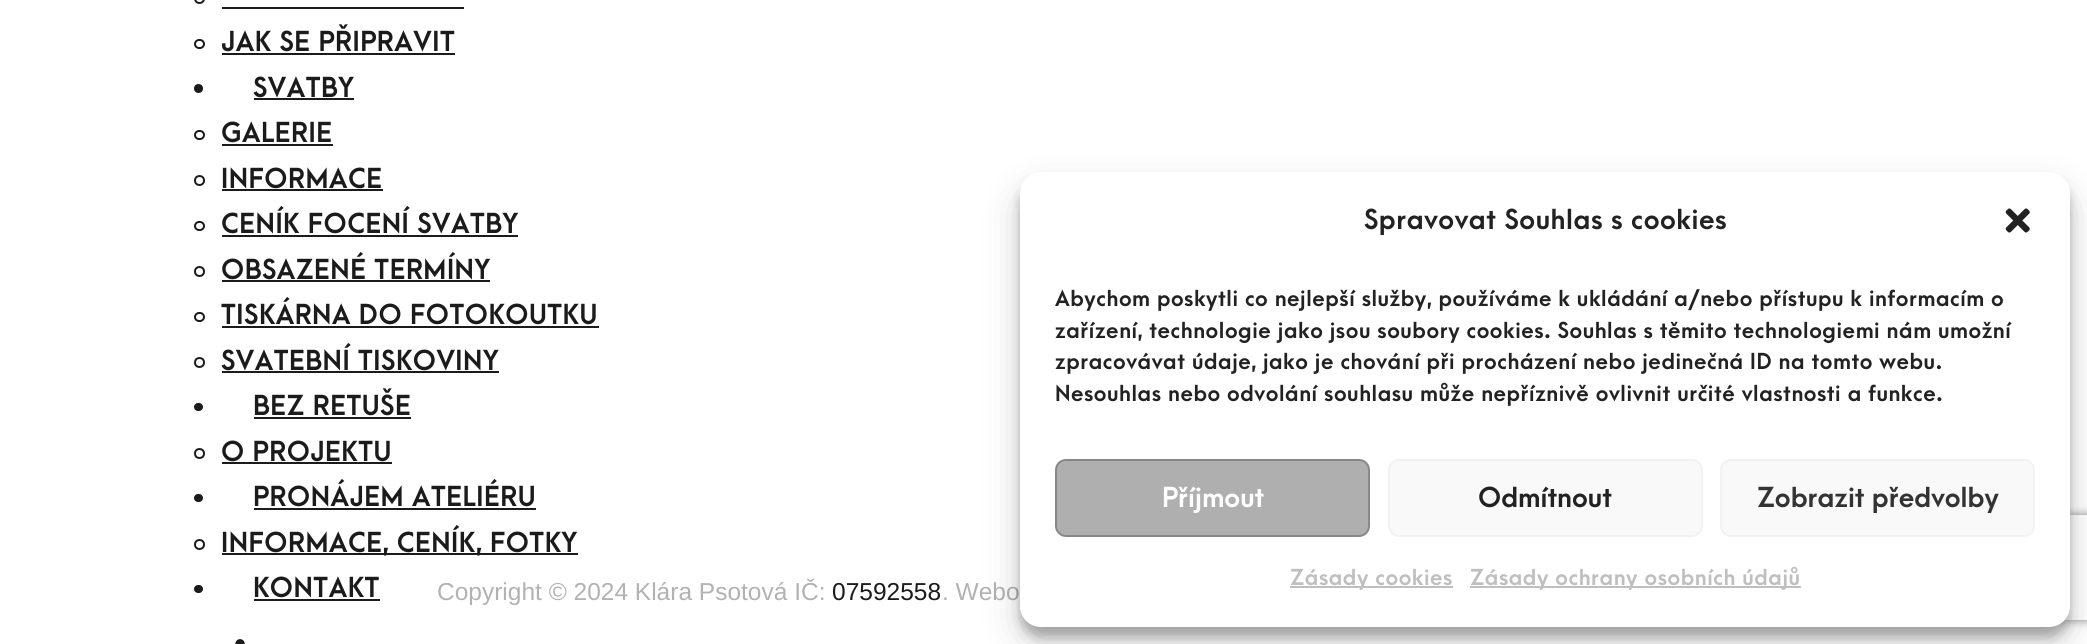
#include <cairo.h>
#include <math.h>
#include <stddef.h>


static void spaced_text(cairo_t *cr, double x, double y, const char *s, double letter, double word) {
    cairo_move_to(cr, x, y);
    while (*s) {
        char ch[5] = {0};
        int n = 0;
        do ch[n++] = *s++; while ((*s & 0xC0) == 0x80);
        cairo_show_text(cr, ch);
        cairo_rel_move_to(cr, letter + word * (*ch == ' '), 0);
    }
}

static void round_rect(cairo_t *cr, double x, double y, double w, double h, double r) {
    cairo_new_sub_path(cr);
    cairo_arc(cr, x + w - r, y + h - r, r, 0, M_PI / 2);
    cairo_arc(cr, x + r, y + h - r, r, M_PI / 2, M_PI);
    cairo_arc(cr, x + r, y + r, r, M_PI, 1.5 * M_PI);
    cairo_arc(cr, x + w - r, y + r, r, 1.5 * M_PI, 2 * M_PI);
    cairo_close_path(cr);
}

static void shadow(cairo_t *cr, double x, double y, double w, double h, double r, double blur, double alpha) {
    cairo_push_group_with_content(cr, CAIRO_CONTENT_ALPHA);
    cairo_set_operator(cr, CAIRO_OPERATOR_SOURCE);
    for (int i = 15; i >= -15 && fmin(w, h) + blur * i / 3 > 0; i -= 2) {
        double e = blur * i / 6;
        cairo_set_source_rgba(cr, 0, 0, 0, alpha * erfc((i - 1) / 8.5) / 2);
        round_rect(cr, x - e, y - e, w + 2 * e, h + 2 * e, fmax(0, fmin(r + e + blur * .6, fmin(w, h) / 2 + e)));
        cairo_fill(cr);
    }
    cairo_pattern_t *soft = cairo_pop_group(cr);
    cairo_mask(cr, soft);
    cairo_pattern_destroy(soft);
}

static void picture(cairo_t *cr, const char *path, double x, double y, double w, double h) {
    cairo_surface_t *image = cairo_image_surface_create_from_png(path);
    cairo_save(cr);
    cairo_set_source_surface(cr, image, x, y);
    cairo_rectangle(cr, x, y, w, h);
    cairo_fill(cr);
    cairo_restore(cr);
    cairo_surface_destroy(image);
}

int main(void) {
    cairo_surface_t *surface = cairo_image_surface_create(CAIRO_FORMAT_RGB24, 2087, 644);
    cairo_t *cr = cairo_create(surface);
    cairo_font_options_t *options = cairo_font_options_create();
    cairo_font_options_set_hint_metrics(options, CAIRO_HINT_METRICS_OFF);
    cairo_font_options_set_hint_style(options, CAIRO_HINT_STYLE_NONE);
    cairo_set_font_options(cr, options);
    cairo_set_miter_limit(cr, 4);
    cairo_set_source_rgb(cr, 1, 1, 1);
    cairo_paint(cr);
    cairo_arc(cr, 199.5, -1.5, 4.5, 0, 2 * M_PI);
    cairo_set_source_rgb(cr, 0.106, 0.106, 0.106);
    cairo_stroke(cr);
    cairo_rectangle(cr, 222, 7, 242, 2);
    cairo_fill(cr);
    round_rect(cr, 195, 40, 9, 8, 4);
    cairo_stroke(cr);
    cairo_select_font_face(cr, "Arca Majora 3", CAIRO_FONT_SLANT_NORMAL, CAIRO_FONT_WEIGHT_BOLD);
    cairo_set_font_size(cr, 26.25);
    spaced_text(cr, 221, 51, "JAK SE PŘIPRAVIT", 0.53, 0);
    cairo_rectangle(cr, 222, 53, 233, 2);
    cairo_fill(cr);
    cairo_arc(cr, 198.5, 88.5, 4.5, 0, 2 * M_PI);
    cairo_fill(cr);
    spaced_text(cr, 253, 97, "SVATBY", 0.53, 0);
    cairo_rectangle(cr, 254, 98, 100, 2);
    cairo_fill(cr);
    round_rect(cr, 195, 131, 9, 8, 4);
    cairo_stroke(cr);
    spaced_text(cr, 221, 142, "GALERIE", 0.53, 0);
    cairo_rectangle(cr, 222, 144, 111, 2);
    cairo_fill(cr);
    cairo_arc(cr, 199.5, 180.5, 4.5, 0, 2 * M_PI);
    cairo_stroke(cr);
    spaced_text(cr, 221, 188, "INFORMACE", 0.53, 0);
    cairo_rectangle(cr, 222, 189, 161, 2);
    cairo_fill(cr);
    round_rect(cr, 195, 222, 9, 8, 4);
    cairo_stroke(cr);
    spaced_text(cr, 221, 233, "CENÍK FOCENÍ SVATBY", 0.53, 0);
    cairo_rectangle(cr, 222, 235, 296, 2);
    cairo_fill(cr);
    cairo_arc(cr, 199.5, 271.5, 4.5, 0, 2 * M_PI);
    cairo_stroke(cr);
    spaced_text(cr, 221, 279, "OBSAZENÉ TERMÍNY", 0.53, 0);
    cairo_rectangle(cr, 222, 280, 268, 2);
    cairo_fill(cr);
    round_rect(cr, 195, 313, 9, 8, 4);
    cairo_stroke(cr);
    spaced_text(cr, 221, 324, "TISKÁRNA DO FOTOKOUTKU", 0.53, 0);
    cairo_rectangle(cr, 222, 326, 377, 2);
    cairo_fill(cr);
    cairo_arc(cr, 199.5, 362.5, 4.5, 0, 2 * M_PI);
    cairo_stroke(cr);
    spaced_text(cr, 221, 370, "SVATEBNÍ TISKOVINY", 0.53, 0);
    cairo_rectangle(cr, 222, 371, 277, 2);
    cairo_fill(cr);
    round_rect(cr, 194, 403, 9, 8, 4);
    cairo_fill(cr);
    spaced_text(cr, 253, 415, "BEZ RETUŠE", 0.53, 0);
    cairo_rectangle(cr, 254, 417, 157, 2);
    cairo_fill(cr);
    cairo_arc(cr, 199.5, 453.5, 4.5, 0, 2 * M_PI);
    cairo_stroke(cr);
    spaced_text(cr, 221, 461, "O PROJEKTU", 0.53, 0);
    cairo_rectangle(cr, 222, 462, 170, 2);
    cairo_fill(cr);
    round_rect(cr, 194, 494, 9, 8, 4);
    cairo_fill(cr);
    spaced_text(cr, 253, 506, "PRONÁJEM ATELIÉRU", 0.53, 0);
    cairo_rectangle(cr, 254, 508, 282, 2);
    cairo_fill(cr);
    cairo_arc(cr, 199.5, 544.5, 4.5, 0, 2 * M_PI);
    cairo_stroke(cr);
    cairo_rectangle(cr, 222, 553, 356, 2);
    cairo_fill(cr);
    spaced_text(cr, 221, 552, "INFORMACE, CENÍK, FOTKY", 0.53, 0);
    round_rect(cr, 194, 585, 9, 8, 4);
    cairo_fill(cr);
    spaced_text(cr, 253, 597, "KONTAKT", 0.53, 0);
    cairo_rectangle(cr, 254, 599, 126, 2);
    cairo_fill(cr);
    picture(cr, "img1.png", 235, 639, 10, 5);
    cairo_select_font_face(cr, "Liberation Sans", CAIRO_FONT_SLANT_NORMAL, CAIRO_FONT_WEIGHT_NORMAL);
    cairo_set_font_size(cr, 24.5);
    cairo_set_source_rgb(cr, 0.698, 0.698, 0.698);
    cairo_move_to(cr, 437, 600);
    cairo_show_text(cr, "Copyright © 2024 Klára Psotová IČ:");
    cairo_set_source_rgb(cr, 0.106, 0.106, 0.106);
    cairo_move_to(cr, 832, 600);
    cairo_show_text(cr, "07592558");
    cairo_set_source_rgb(cr, 0.698, 0.698, 0.698);
    cairo_move_to(cr, 942, 600);
    cairo_show_text(cr, ". Webo");
    cairo_set_source_rgb(cr, 0, 0, 0);
    shadow(cr, 1020, 182, 1050, 455, 21, 5, 0.23);
    shadow(cr, 1020, 189, 1050, 455, 21, 17.5, 0.19);
    cairo_save(cr);
    cairo_set_fill_rule(cr, CAIRO_FILL_RULE_EVEN_ODD);
    cairo_new_path(cr);
    cairo_move_to(cr, 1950, 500);
    cairo_line_to(cr, 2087, 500);
    cairo_line_to(cr, 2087, 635);
    cairo_line_to(cr, 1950, 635);
    cairo_close_path(cr);
    cairo_move_to(cr, 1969, 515);
    cairo_line_to(cr, 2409, 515);
    cairo_curve_to(cr, 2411, 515, 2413, 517, 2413, 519);
    cairo_line_to(cr, 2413, 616);
    cairo_curve_to(cr, 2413, 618, 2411, 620, 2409, 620);
    cairo_line_to(cr, 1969, 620);
    cairo_curve_to(cr, 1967, 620, 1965, 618, 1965, 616);
    cairo_line_to(cr, 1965, 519);
    cairo_curve_to(cr, 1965, 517, 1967, 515, 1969, 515);
    cairo_close_path(cr);
    cairo_clip(cr);
    cairo_set_source_rgb(cr, 0.502, 0.502, 0.502);
    shadow(cr, 1965, 515, 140, 105, 4, 4.5, 1);
    cairo_restore(cr);
    cairo_set_source_rgb(cr, 1, 1, 1);
    round_rect(cr, 1020, 172, 1050, 455, 21);
    cairo_fill(cr);
    cairo_select_font_face(cr, "Arca Majora 3", CAIRO_FONT_SLANT_NORMAL, CAIRO_FONT_WEIGHT_BOLD);
    cairo_set_font_size(cr, 26.25);
    cairo_set_source_rgb(cr, 0.133, 0.133, 0.133);
    spaced_text(cr, 1364, 229, "Spravovat Souhlas s cookies", 0.53, 0);
    picture(cr, "img2.png", 2005, 208, 25, 25);
    cairo_set_font_size(cr, 21);
    spaced_text(cr, 1055, 306, "Abychom poskytli co nejlepší služby, používáme k ukládání a/nebo přístupu k informacím o", 0.53, 0);
    spaced_text(cr, 1055, 338, "zařízení, technologie jako jsou soubory cookies. Souhlas s těmito technologiemi nám umožní", 0.53, 0);
    spaced_text(cr, 1055, 369, "zpracovávat údaje, jako je chování při procházení nebo jedinečná ID na tomto webu.", 0.53, 0);
    spaced_text(cr, 1055, 401, "Nesouhlas nebo odvolání souhlasu může nepříznivě ovlivnit určité vlastnosti a funkce.", 0.53, 0);
    cairo_set_source_rgb(cr, 0.686, 0.686, 0.686);
    round_rect(cr, 1056, 460, 313, 76, 10);
    cairo_fill_preserve(cr);
    cairo_set_source_rgb(cr, 0.529, 0.529, 0.529);
    cairo_stroke(cr);
    cairo_set_font_size(cr, 26.25);
    cairo_set_source_rgb(cr, 1, 1, 1);
    cairo_move_to(cr, 1162, 507);
    cairo_show_text(cr, "Příjmout");
    cairo_set_source_rgb(cr, 0.976, 0.976, 0.976);
    round_rect(cr, 1389, 460, 313, 76, 10);
    cairo_fill_preserve(cr);
    cairo_set_source_rgb(cr, 0.949, 0.949, 0.949);
    cairo_stroke(cr);
    cairo_set_source_rgb(cr, 0.133, 0.133, 0.133);
    cairo_move_to(cr, 1478, 507);
    cairo_show_text(cr, "Odmítnout");
    cairo_set_source_rgb(cr, 0.976, 0.976, 0.976);
    round_rect(cr, 1721, 460, 313, 76, 10);
    cairo_fill_preserve(cr);
    cairo_set_source_rgb(cr, 0.949, 0.949, 0.949);
    cairo_stroke(cr);
    cairo_set_source_rgb(cr, 0.2, 0.2, 0.2);
    cairo_move_to(cr, 1757, 507);
    cairo_show_text(cr, "Zobrazit předvolby");
    cairo_set_source_rgb(cr, 0.749, 0.749, 0.749);
    cairo_rectangle(cr, 1290, 586, 163, 2);
    cairo_fill(cr);
    cairo_set_font_size(cr, 21);
    spaced_text(cr, 1290, 585, "Zásady cookies", 0.53, 0);
    cairo_rectangle(cr, 1470, 586, 331, 2);
    cairo_fill(cr);
    spaced_text(cr, 1470, 585, "Zásady ochrany osobních údajů", 0.53, 0);
    cairo_surface_write_to_png(surface, "page.png");
    cairo_font_options_destroy(options);
    cairo_destroy(cr);
    cairo_surface_destroy(surface);
    return 0;
}
